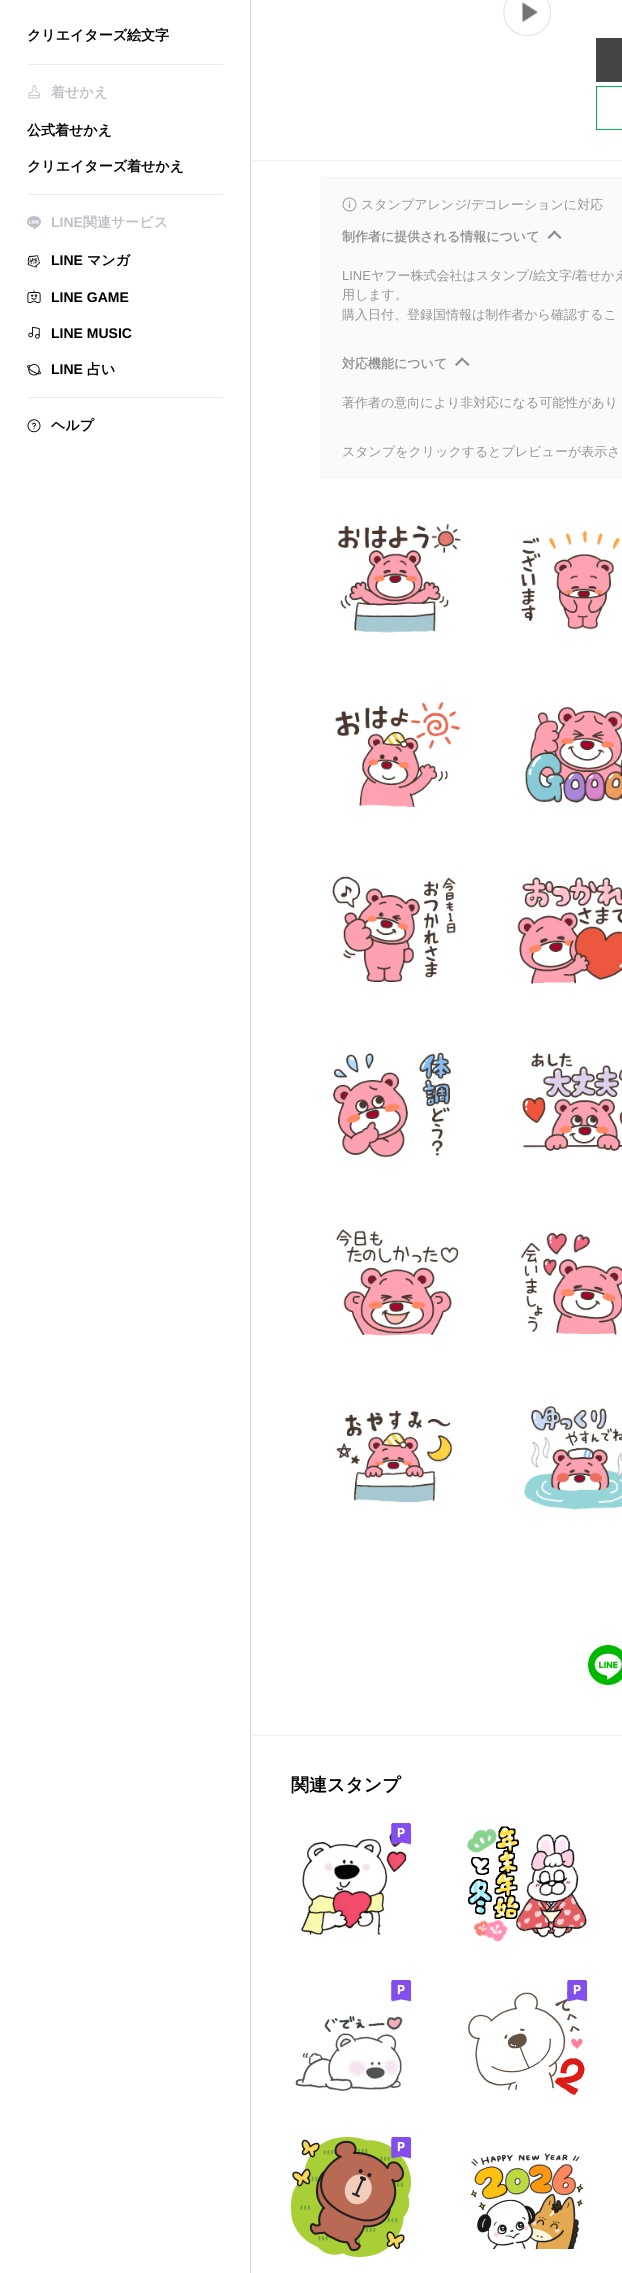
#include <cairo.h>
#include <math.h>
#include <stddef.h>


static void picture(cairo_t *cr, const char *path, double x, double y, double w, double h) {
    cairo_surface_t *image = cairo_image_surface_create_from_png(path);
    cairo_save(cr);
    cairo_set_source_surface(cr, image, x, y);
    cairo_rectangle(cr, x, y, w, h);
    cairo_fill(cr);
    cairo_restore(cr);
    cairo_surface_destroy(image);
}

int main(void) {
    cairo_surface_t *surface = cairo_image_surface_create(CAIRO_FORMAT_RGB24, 622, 2273);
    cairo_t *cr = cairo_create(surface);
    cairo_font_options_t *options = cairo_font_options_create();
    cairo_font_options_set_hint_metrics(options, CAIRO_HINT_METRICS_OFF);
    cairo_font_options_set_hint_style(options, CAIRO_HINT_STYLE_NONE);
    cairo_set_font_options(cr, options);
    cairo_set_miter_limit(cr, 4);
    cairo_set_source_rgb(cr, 1, 1, 1);
    cairo_paint(cr);
    cairo_select_font_face(cr, "WenQuanYi Zen Hei", CAIRO_FONT_SLANT_NORMAL, CAIRO_FONT_WEIGHT_BOLD);
    cairo_set_font_size(cr, 14);
    cairo_set_source_rgb(cr, 0, 0, 0);
    cairo_move_to(cr, 27, 40);
    cairo_show_text(cr, "クリエイターズ絵文字");
    cairo_set_source_rgb(cr, 0.922, 0.922, 0.922);
    cairo_rectangle(cr, 27, 64, 196, 1);
    cairo_fill(cr);
    picture(cr, "img1.png", 28, 85, 12, 14);
    cairo_set_source_rgb(cr, 0.745, 0.753, 0.78);
    cairo_move_to(cr, 51, 97);
    cairo_show_text(cr, "着せかえ");
    cairo_set_source_rgb(cr, 0, 0, 0);
    cairo_move_to(cr, 27, 135);
    cairo_show_text(cr, "公式着せかえ");
    cairo_move_to(cr, 27, 171);
    cairo_show_text(cr, "クリエイターズ着せかえ");
    cairo_set_source_rgb(cr, 0.922, 0.922, 0.922);
    cairo_rectangle(cr, 27, 194, 196, 1);
    cairo_fill(cr);
    picture(cr, "img2.png", 27, 216, 14, 14);
    cairo_select_font_face(cr, "Liberation Sans", CAIRO_FONT_SLANT_NORMAL, CAIRO_FONT_WEIGHT_BOLD);
    cairo_set_source_rgb(cr, 0.745, 0.753, 0.78);
    cairo_move_to(cr, 51, 227);
    cairo_show_text(cr, "LINE");
    cairo_select_font_face(cr, "WenQuanYi Zen Hei", CAIRO_FONT_SLANT_NORMAL, CAIRO_FONT_WEIGHT_BOLD);
    cairo_move_to(cr, 83, 227);
    cairo_show_text(cr, "関連サービス");
    picture(cr, "img3.png", 27, 255, 13, 13);
    cairo_select_font_face(cr, "Liberation Sans", CAIRO_FONT_SLANT_NORMAL, CAIRO_FONT_WEIGHT_BOLD);
    cairo_set_source_rgb(cr, 0, 0, 0);
    cairo_move_to(cr, 51, 265);
    cairo_show_text(cr, "LINE");
    cairo_select_font_face(cr, "WenQuanYi Zen Hei", CAIRO_FONT_SLANT_NORMAL, CAIRO_FONT_WEIGHT_BOLD);
    cairo_move_to(cr, 87, 265);
    cairo_show_text(cr, "マンガ");
    picture(cr, "img4.png", 27, 290, 14, 14);
    cairo_select_font_face(cr, "Liberation Sans", CAIRO_FONT_SLANT_NORMAL, CAIRO_FONT_WEIGHT_BOLD);
    cairo_move_to(cr, 51, 302);
    cairo_show_text(cr, "LINE GAME");
    picture(cr, "img5.png", 28, 326, 12, 13);
    cairo_move_to(cr, 51, 338);
    cairo_show_text(cr, "LINE MUSIC");
    picture(cr, "img6.png", 27, 364, 14, 12);
    cairo_move_to(cr, 51, 374);
    cairo_show_text(cr, "LINE");
    cairo_select_font_face(cr, "WenQuanYi Zen Hei", CAIRO_FONT_SLANT_NORMAL, CAIRO_FONT_WEIGHT_BOLD);
    cairo_move_to(cr, 87, 374);
    cairo_show_text(cr, "占い");
    cairo_set_source_rgb(cr, 0.922, 0.922, 0.922);
    cairo_rectangle(cr, 27, 397, 196, 1);
    cairo_fill(cr);
    picture(cr, "img7.png", 27, 419, 14, 14);
    cairo_set_source_rgb(cr, 0, 0, 0);
    cairo_move_to(cr, 51, 430);
    cairo_show_text(cr, "ヘルプ");
    cairo_set_source_rgb(cr, 0.839, 0.839, 0.839);
    cairo_rectangle(cr, 250, 0, 1, 2273);
    cairo_fill(cr);
    picture(cr, "img8.png", 503, 0, 48, 36);
    cairo_set_source_rgb(cr, 0.271, 0.271, 0.271);
    cairo_rectangle(cr, 596, 38, 26, 44);
    cairo_fill(cr);
    cairo_rectangle(cr, 596.5, 86.5, 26, 43);
    cairo_set_source_rgb(cr, 0, 0.722, 0.31);
    cairo_set_line_width(cr, 1);
    cairo_stroke(cr);
    cairo_set_source_rgb(cr, 0.949, 0.949, 0.949);
    cairo_rectangle(cr, 251, 160, 371, 1);
    cairo_fill(cr);
    cairo_set_source_rgb(cr, 0.98, 0.98, 0.98);
    cairo_rectangle(cr, 321.5, 177.5, 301, 300);
    cairo_fill_preserve(cr);
    cairo_set_source_rgb(cr, 0.961, 0.961, 0.961);
    cairo_stroke(cr);
    picture(cr, "img9.png", 342, 197, 15, 15);
    cairo_select_font_face(cr, "WenQuanYi Zen Hei Medium", CAIRO_FONT_SLANT_NORMAL, CAIRO_FONT_WEIGHT_NORMAL);
    cairo_set_font_size(cr, 13);
    cairo_set_source_rgb(cr, 0.58, 0.58, 0.58);
    cairo_move_to(cr, 361, 209);
    cairo_show_text(cr, "スタンプアレンジ");
    cairo_select_font_face(cr, "Liberation Sans", CAIRO_FONT_SLANT_NORMAL, CAIRO_FONT_WEIGHT_NORMAL);
    cairo_move_to(cr, 467, 209);
    cairo_show_text(cr, "/");
    cairo_select_font_face(cr, "WenQuanYi Zen Hei Medium", CAIRO_FONT_SLANT_NORMAL, CAIRO_FONT_WEIGHT_NORMAL);
    cairo_move_to(cr, 471, 209);
    cairo_show_text(cr, "デコレーションに対応");
    cairo_select_font_face(cr, "WenQuanYi Zen Hei", CAIRO_FONT_SLANT_NORMAL, CAIRO_FONT_WEIGHT_BOLD);
    cairo_move_to(cr, 342, 241);
    cairo_show_text(cr, "制作者に提供される情報について");
    cairo_set_source_rgb(cr, 0.518, 0.541, 0.58);
    cairo_new_path(cr);
    cairo_move_to(cr, 547.5, 237.5);
    cairo_line_to(cr, 554.5, 230.5);
    cairo_line_to(cr, 556, 232);
    cairo_line_to(cr, 549, 239);
    cairo_close_path(cr);
    cairo_fill(cr);
    cairo_new_path(cr);
    cairo_move_to(cr, 553, 232);
    cairo_line_to(cr, 554.5, 230.5);
    cairo_line_to(cr, 561.5, 237.5);
    cairo_line_to(cr, 560, 239);
    cairo_close_path(cr);
    cairo_fill(cr);
    cairo_select_font_face(cr, "Liberation Sans", CAIRO_FONT_SLANT_NORMAL, CAIRO_FONT_WEIGHT_NORMAL);
    cairo_set_source_rgb(cr, 0.58, 0.58, 0.58);
    cairo_move_to(cr, 342, 280);
    cairo_show_text(cr, "LINE");
    cairo_select_font_face(cr, "WenQuanYi Zen Hei Medium", CAIRO_FONT_SLANT_NORMAL, CAIRO_FONT_WEIGHT_NORMAL);
    cairo_move_to(cr, 371, 280);
    cairo_show_text(cr, "ヤフー株式会社はスタンプ");
    cairo_select_font_face(cr, "Liberation Sans", CAIRO_FONT_SLANT_NORMAL, CAIRO_FONT_WEIGHT_NORMAL);
    cairo_move_to(cr, 529, 280);
    cairo_show_text(cr, "/");
    cairo_select_font_face(cr, "WenQuanYi Zen Hei Medium", CAIRO_FONT_SLANT_NORMAL, CAIRO_FONT_WEIGHT_NORMAL);
    cairo_move_to(cr, 533, 280);
    cairo_show_text(cr, "絵文字");
    cairo_select_font_face(cr, "Liberation Sans", CAIRO_FONT_SLANT_NORMAL, CAIRO_FONT_WEIGHT_NORMAL);
    cairo_move_to(cr, 572, 280);
    cairo_show_text(cr, "/");
    cairo_select_font_face(cr, "WenQuanYi Zen Hei Medium", CAIRO_FONT_SLANT_NORMAL, CAIRO_FONT_WEIGHT_NORMAL);
    cairo_move_to(cr, 575, 280);
    cairo_show_text(cr, "着せかえ");
    cairo_move_to(cr, 342, 299);
    cairo_show_text(cr, "用します。");
    cairo_move_to(cr, 342, 319);
    cairo_show_text(cr, "購入日付、登録国情報は制作者から確認するこ");
    cairo_select_font_face(cr, "WenQuanYi Zen Hei", CAIRO_FONT_SLANT_NORMAL, CAIRO_FONT_WEIGHT_BOLD);
    cairo_move_to(cr, 342, 368);
    cairo_show_text(cr, "対応機能について");
    cairo_set_source_rgb(cr, 0.518, 0.541, 0.58);
    cairo_new_path(cr);
    cairo_move_to(cr, 455, 364.5);
    cairo_line_to(cr, 462, 357.5);
    cairo_line_to(cr, 463.5, 359);
    cairo_line_to(cr, 456.5, 366);
    cairo_close_path(cr);
    cairo_fill(cr);
    cairo_new_path(cr);
    cairo_move_to(cr, 461, 359);
    cairo_line_to(cr, 462, 357.5);
    cairo_line_to(cr, 469.5, 364.5);
    cairo_line_to(cr, 468, 366);
    cairo_close_path(cr);
    cairo_fill(cr);
    cairo_select_font_face(cr, "WenQuanYi Zen Hei Medium", CAIRO_FONT_SLANT_NORMAL, CAIRO_FONT_WEIGHT_NORMAL);
    cairo_set_source_rgb(cr, 0.58, 0.58, 0.58);
    cairo_move_to(cr, 342, 407);
    cairo_show_text(cr, "著作者の意向により非対応になる可能性があり");
    cairo_move_to(cr, 342, 456);
    cairo_show_text(cr, "スタンプをクリックするとプレビューが表示さ");
    picture(cr, "img10.png", 338, 523, 123, 110);
    picture(cr, "img11.png", 521, 530, 99, 100);
    picture(cr, "img12.png", 335, 702, 125, 105);
    picture(cr, "img13.png", 525, 706, 97, 97);
    picture(cr, "img14.png", 332, 876, 124, 106);
    picture(cr, "img15.png", 517, 877, 105, 107);
    picture(cr, "img16.png", 333, 1052, 118, 106);
    picture(cr, "img17.png", 522, 1053, 100, 98);
    picture(cr, "img18.png", 336, 1229, 123, 107);
    picture(cr, "img19.png", 520, 1232, 102, 103);
    picture(cr, "img20.png", 336, 1410, 117, 93);
    picture(cr, "img21.png", 524, 1406, 98, 104);
    picture(cr, "img22.png", 588, 1645, 34, 40);
    cairo_set_source_rgb(cr, 0.949, 0.949, 0.949);
    cairo_rectangle(cr, 251, 1735, 371, 1);
    cairo_fill(cr);
    cairo_select_font_face(cr, "WenQuanYi Zen Hei", CAIRO_FONT_SLANT_NORMAL, CAIRO_FONT_WEIGHT_BOLD);
    cairo_set_font_size(cr, 18);
    cairo_set_source_rgb(cr, 0, 0, 0);
    cairo_move_to(cr, 291, 1791);
    cairo_show_text(cr, "関連スタンプ");
    picture(cr, "img25.png", 301, 1833, 106, 102);
    picture(cr, "img23.png", 391, 1823, 20, 22);
    picture(cr, "img24.png", 391, 1823, 20, 21);
    picture(cr, "img26.png", 467, 1826, 120, 116);
    picture(cr, "img27.png", 391, 1980, 20, 22);
    picture(cr, "img28.png", 391, 1980, 20, 21);
    picture(cr, "img29.png", 295, 2015, 108, 77);
    picture(cr, "img32.png", 468, 1991, 117, 104);
    picture(cr, "img30.png", 567, 1980, 20, 22);
    picture(cr, "img31.png", 567, 1980, 20, 21);
    picture(cr, "img33.png", 291, 2137, 120, 120);
    picture(cr, "img34.png", 391, 2137, 20, 22);
    picture(cr, "img35.png", 391, 2137, 20, 21);
    picture(cr, "img36.png", 470, 2153, 114, 96);
    cairo_surface_write_to_png(surface, "page.png");
    cairo_font_options_destroy(options);
    cairo_destroy(cr);
    cairo_surface_destroy(surface);
    return 0;
}
